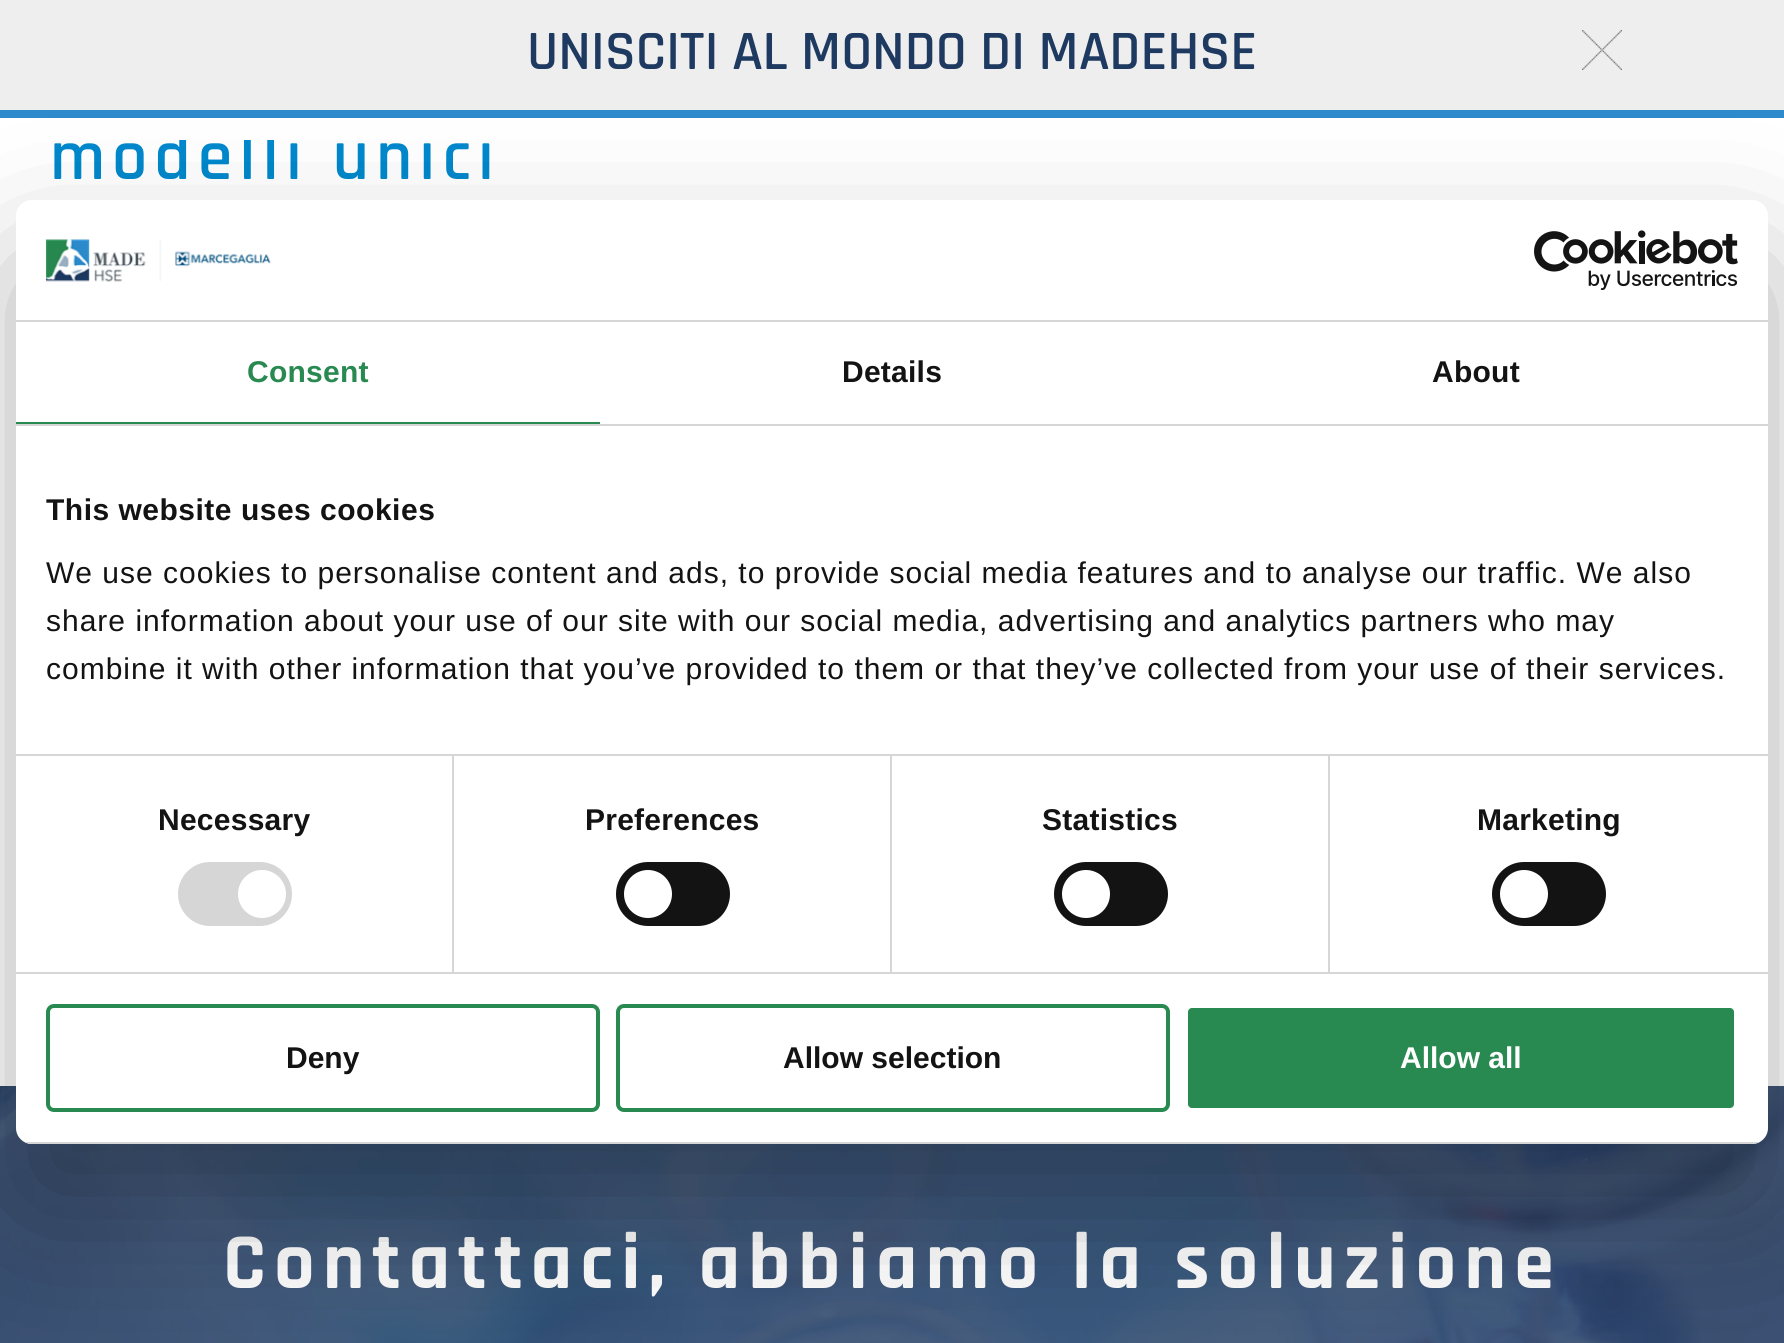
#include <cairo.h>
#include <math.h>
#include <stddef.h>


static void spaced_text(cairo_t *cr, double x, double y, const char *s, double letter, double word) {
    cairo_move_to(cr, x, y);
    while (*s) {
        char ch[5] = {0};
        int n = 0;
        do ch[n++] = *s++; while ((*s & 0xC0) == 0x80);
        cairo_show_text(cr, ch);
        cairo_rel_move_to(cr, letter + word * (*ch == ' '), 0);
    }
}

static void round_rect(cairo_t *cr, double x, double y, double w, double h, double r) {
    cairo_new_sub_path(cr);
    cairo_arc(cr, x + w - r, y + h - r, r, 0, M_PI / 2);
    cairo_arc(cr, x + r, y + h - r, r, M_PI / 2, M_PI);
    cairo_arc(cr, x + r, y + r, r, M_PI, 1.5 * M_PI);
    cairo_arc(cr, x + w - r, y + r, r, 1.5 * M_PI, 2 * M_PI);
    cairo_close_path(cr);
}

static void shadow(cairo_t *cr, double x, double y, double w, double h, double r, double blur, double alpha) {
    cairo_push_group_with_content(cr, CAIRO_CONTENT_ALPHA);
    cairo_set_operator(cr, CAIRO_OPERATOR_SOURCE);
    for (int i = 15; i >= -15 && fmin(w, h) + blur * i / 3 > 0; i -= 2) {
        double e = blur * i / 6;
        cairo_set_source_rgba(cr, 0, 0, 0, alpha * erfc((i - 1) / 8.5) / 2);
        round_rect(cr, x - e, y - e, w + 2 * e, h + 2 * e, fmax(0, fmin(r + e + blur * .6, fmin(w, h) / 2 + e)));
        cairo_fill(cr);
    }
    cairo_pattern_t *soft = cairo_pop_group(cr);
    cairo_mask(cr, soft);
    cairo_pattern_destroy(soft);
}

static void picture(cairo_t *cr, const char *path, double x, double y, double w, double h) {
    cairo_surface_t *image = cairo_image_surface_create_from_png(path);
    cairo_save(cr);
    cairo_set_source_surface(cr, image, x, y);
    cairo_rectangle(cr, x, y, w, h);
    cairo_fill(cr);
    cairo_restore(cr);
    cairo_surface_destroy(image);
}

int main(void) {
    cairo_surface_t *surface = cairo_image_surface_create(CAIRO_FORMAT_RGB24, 1784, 1343);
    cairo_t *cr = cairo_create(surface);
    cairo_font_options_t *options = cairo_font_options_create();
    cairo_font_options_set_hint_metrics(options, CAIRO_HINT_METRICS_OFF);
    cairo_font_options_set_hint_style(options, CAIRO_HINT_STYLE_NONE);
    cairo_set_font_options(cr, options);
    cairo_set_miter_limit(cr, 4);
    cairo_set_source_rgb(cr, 1, 1, 1);
    cairo_paint(cr);
    cairo_set_source_rgb(cr, 0.933, 0.933, 0.933);
    cairo_rectangle(cr, 0, 0, 1784, 110);
    cairo_fill(cr);
    cairo_set_source_rgb(cr, 0.176, 0.545, 0.796);
    cairo_rectangle(cr, 0, 110, 1784, 8);
    cairo_fill(cr);
    cairo_select_font_face(cr, "Rajdhani SemiBold", CAIRO_FONT_SLANT_NORMAL, CAIRO_FONT_WEIGHT_NORMAL);
    cairo_set_font_size(cr, 56);
    cairo_set_source_rgb(cr, 0.122, 0.227, 0.38);
    cairo_move_to(cr, 527, 69);
    cairo_show_text(cr, "UNISCITI AL MONDO DI MADEHSE");
    picture(cr, "img1.png", 1582, 30, 40, 40);
    cairo_set_font_size(cr, 70);
    cairo_set_source_rgb(cr, 0, 0.533, 0.8);
    spaced_text(cr, 50, 179, "modelli unici", 7, 0);
    cairo_set_source_rgb(cr, 1, 1, 1);
    cairo_rectangle(cr, 179, 129, 311, 11);
    cairo_fill(cr);
    picture(cr, "img2.png", 0, 1086, 1784, 257);
    cairo_select_font_face(cr, "Rajdhani", CAIRO_FONT_SLANT_NORMAL, CAIRO_FONT_WEIGHT_BOLD);
    cairo_set_font_size(cr, 80);
    spaced_text(cr, 223, 1288, "Contattaci, abbiamo la soluzione", 8, 0);
    cairo_set_source_rgb(cr, 0, 0, 0);
    shadow(cr, 16, 264, 1752, 944, 16, 68, 0.3);
    cairo_set_source_rgb(cr, 1, 1, 1);
    round_rect(cr, 16, 200, 1752, 944, 16);
    cairo_fill(cr);
    cairo_set_source_rgb(cr, 0.839, 0.839, 0.839);
    cairo_rectangle(cr, 16, 320, 1752, 2);
    cairo_fill(cr);
    picture(cr, "img3.png", 46, 239, 225, 43);
    picture(cr, "img4.png", 1534, 230, 204, 60);
    cairo_rectangle(cr, 16, 424, 1752, 2);
    cairo_fill(cr);
    cairo_set_source_rgb(cr, 0.157, 0.537, 0.318);
    cairo_rectangle(cr, 16, 422, 584, 2);
    cairo_fill(cr);
    cairo_select_font_face(cr, "Liberation Sans", CAIRO_FONT_SLANT_NORMAL, CAIRO_FONT_WEIGHT_BOLD);
    cairo_set_font_size(cr, 30);
    spaced_text(cr, 247, 382, "Consent", 0.25, 0);
    cairo_set_source_rgb(cr, 0.078, 0.078, 0.078);
    spaced_text(cr, 842, 382, "Details", 0.25, 0);
    spaced_text(cr, 1432, 382, "About", 0.25, 0);
    cairo_set_source_rgb(cr, 0.839, 0.839, 0.839);
    cairo_rectangle(cr, 16, 754, 1752, 2);
    cairo_fill(cr);
    cairo_set_source_rgb(cr, 0.078, 0.078, 0.078);
    spaced_text(cr, 46, 520, "This website uses cookies", 0.5, 0);
    cairo_select_font_face(cr, "Liberation Sans", CAIRO_FONT_SLANT_NORMAL, CAIRO_FONT_WEIGHT_NORMAL);
    spaced_text(cr, 46, 583, "We use cookies to personalise content and ads, to provide social media features and to analyse our traffic. We also", 1, 0);
    spaced_text(cr, 46, 631, "share information about your use of our site with our social media, advertising and analytics partners who may", 1, 0);
    spaced_text(cr, 46, 679, "combine it with other information that you’ve provided to them or that they’ve collected from your use of their services.", 1, 0);
    cairo_set_source_rgb(cr, 0.839, 0.839, 0.839);
    cairo_rectangle(cr, 16, 972, 1752, 2);
    cairo_fill(cr);
    cairo_rectangle(cr, 452, 756, 2, 216);
    cairo_fill(cr);
    cairo_select_font_face(cr, "Liberation Sans", CAIRO_FONT_SLANT_NORMAL, CAIRO_FONT_WEIGHT_BOLD);
    cairo_set_source_rgb(cr, 0.078, 0.078, 0.078);
    spaced_text(cr, 158, 830, "Necessary", 0.25, 0);
    cairo_set_source_rgb(cr, 0.839, 0.839, 0.839);
    round_rect(cr, 178, 862, 114, 64, 32);
    cairo_fill(cr);
    cairo_set_source_rgb(cr, 1, 1, 1);
    cairo_arc(cr, 262, 894, 24, 0, 2 * M_PI);
    cairo_fill(cr);
    cairo_set_source_rgb(cr, 0.839, 0.839, 0.839);
    cairo_rectangle(cr, 890, 756, 2, 216);
    cairo_fill(cr);
    cairo_set_source_rgb(cr, 0.078, 0.078, 0.078);
    spaced_text(cr, 585, 830, "Preferences", 0.25, 0);
    round_rect(cr, 616, 862, 114, 64, 32);
    cairo_fill(cr);
    cairo_set_source_rgb(cr, 1, 1, 1);
    cairo_arc(cr, 648, 894, 24, 0, 2 * M_PI);
    cairo_fill(cr);
    cairo_set_source_rgb(cr, 0.839, 0.839, 0.839);
    cairo_rectangle(cr, 1328, 756, 2, 216);
    cairo_fill(cr);
    cairo_set_source_rgb(cr, 0.078, 0.078, 0.078);
    spaced_text(cr, 1042, 830, "Statistics", 0.25, 0);
    round_rect(cr, 1054, 862, 114, 64, 32);
    cairo_fill(cr);
    cairo_set_source_rgb(cr, 1, 1, 1);
    cairo_arc(cr, 1086, 894, 24, 0, 2 * M_PI);
    cairo_fill(cr);
    cairo_set_source_rgb(cr, 0.078, 0.078, 0.078);
    spaced_text(cr, 1477, 830, "Marketing", 0.25, 0);
    round_rect(cr, 1492, 862, 114, 64, 32);
    cairo_fill(cr);
    cairo_set_source_rgb(cr, 1, 1, 1);
    cairo_arc(cr, 1524, 894, 24, 0, 2 * M_PI);
    cairo_fill(cr);
    cairo_save(cr);
    round_rect(cr, 16, 200, 1752, 944, 16);
    cairo_clip(cr);
    cairo_set_source_rgb(cr, 0.839, 0.839, 0.839);
    cairo_rectangle(cr, 16, 1142, 1752, 2);
    cairo_fill(cr);
    cairo_restore(cr);
    round_rect(cr, 48, 1006, 550, 104, 6);
    cairo_set_source_rgb(cr, 0.157, 0.537, 0.318);
    cairo_set_line_width(cr, 4);
    cairo_stroke(cr);
    cairo_set_source_rgb(cr, 0.078, 0.078, 0.078);
    cairo_move_to(cr, 286, 1068);
    cairo_show_text(cr, "Deny");
    round_rect(cr, 618, 1006, 550, 104, 6);
    cairo_set_source_rgb(cr, 0.157, 0.537, 0.318);
    cairo_stroke(cr);
    cairo_set_source_rgb(cr, 0.078, 0.078, 0.078);
    cairo_move_to(cr, 783, 1068);
    cairo_show_text(cr, "Allow selection");
    cairo_set_source_rgb(cr, 0.157, 0.537, 0.318);
    round_rect(cr, 1186, 1006, 550, 104, 6);
    cairo_fill_preserve(cr);
    cairo_set_source_rgb(cr, 1, 1, 1);
    cairo_stroke(cr);
    cairo_move_to(cr, 1400, 1068);
    cairo_show_text(cr, "Allow all");
    cairo_surface_write_to_png(surface, "page.png");
    cairo_font_options_destroy(options);
    cairo_destroy(cr);
    cairo_surface_destroy(surface);
    return 0;
}
